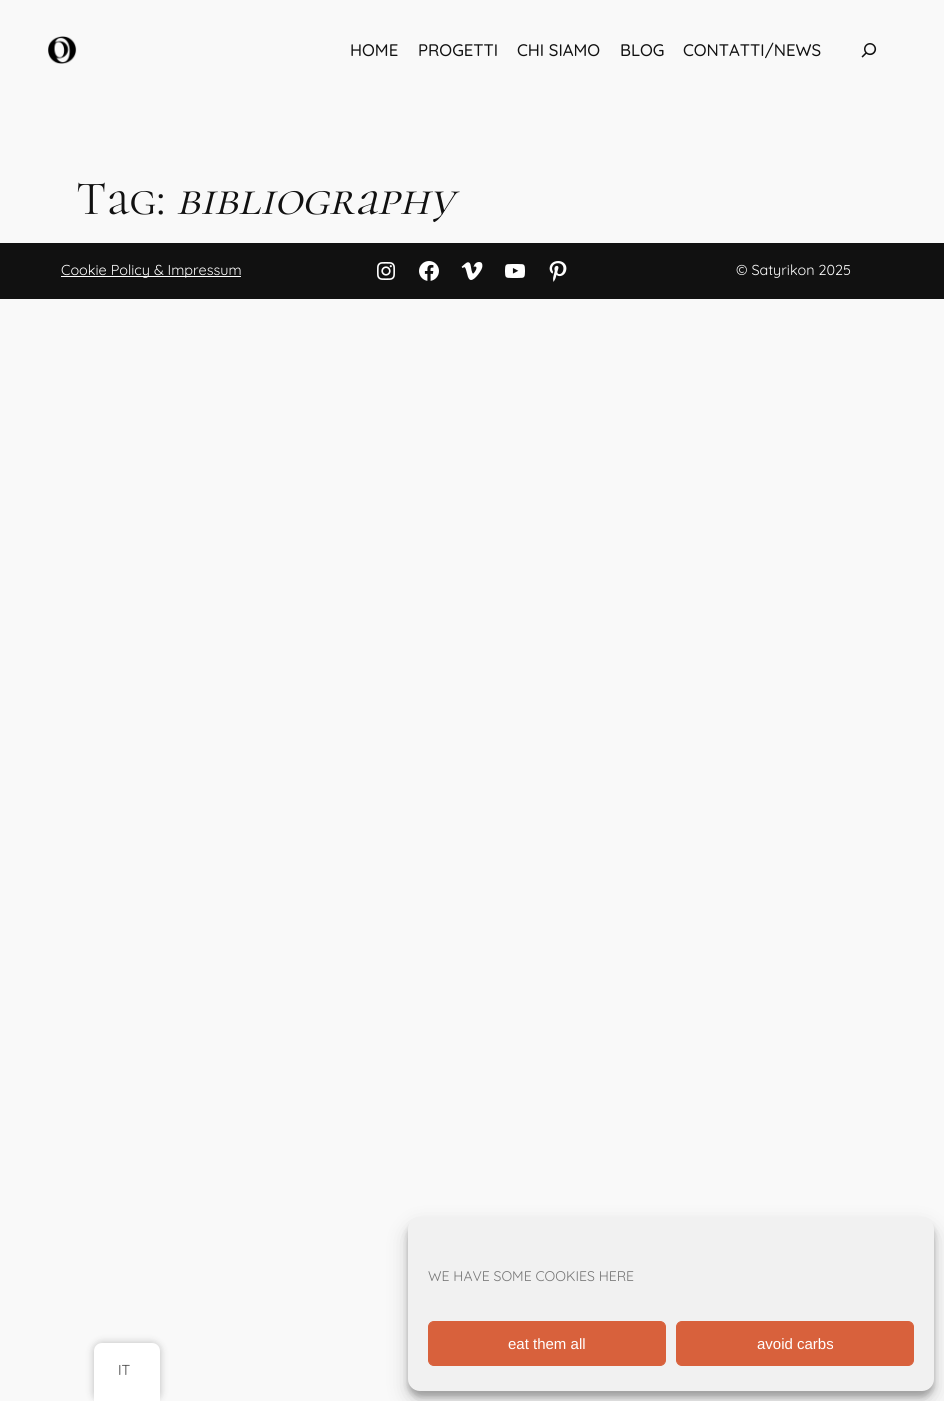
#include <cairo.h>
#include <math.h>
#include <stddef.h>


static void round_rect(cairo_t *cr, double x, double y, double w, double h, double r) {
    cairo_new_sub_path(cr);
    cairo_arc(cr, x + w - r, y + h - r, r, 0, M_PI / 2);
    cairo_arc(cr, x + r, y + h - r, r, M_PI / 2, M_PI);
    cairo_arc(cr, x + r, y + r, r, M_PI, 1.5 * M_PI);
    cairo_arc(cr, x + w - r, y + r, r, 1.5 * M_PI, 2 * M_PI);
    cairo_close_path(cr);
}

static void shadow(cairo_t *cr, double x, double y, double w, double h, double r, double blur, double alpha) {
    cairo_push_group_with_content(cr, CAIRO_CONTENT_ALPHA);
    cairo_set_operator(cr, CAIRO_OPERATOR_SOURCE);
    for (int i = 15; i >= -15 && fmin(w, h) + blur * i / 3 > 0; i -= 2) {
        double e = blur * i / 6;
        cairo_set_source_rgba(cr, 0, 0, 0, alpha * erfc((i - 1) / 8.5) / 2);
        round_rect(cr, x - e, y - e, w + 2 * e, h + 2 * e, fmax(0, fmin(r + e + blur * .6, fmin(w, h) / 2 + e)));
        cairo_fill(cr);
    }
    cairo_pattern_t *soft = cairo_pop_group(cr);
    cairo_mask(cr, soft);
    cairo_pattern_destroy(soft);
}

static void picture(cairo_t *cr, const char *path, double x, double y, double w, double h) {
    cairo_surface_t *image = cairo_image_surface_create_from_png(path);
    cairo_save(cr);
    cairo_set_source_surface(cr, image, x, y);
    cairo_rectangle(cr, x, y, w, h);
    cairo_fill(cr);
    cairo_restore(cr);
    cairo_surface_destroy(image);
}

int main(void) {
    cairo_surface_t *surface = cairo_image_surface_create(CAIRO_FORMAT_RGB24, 944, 1401);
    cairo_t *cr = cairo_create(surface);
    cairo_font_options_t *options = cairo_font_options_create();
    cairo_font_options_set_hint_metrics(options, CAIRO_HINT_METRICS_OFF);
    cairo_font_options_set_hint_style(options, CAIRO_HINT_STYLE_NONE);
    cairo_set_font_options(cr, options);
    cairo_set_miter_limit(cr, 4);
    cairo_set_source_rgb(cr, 0.976, 0.976, 0.976);
    cairo_paint(cr);
    picture(cr, "img1.png", 48, 36, 29, 28);
    cairo_select_font_face(cr, "Quicksand Medium", CAIRO_FONT_SLANT_NORMAL, CAIRO_FONT_WEIGHT_NORMAL);
    cairo_set_font_size(cr, 16.75);
    cairo_set_source_rgb(cr, 0.067, 0.067, 0.067);
    cairo_move_to(cr, 350, 56);
    cairo_show_text(cr, "HOME");
    cairo_move_to(cr, 418, 56);
    cairo_show_text(cr, "PROGETTI");
    cairo_move_to(cr, 517, 56);
    cairo_show_text(cr, "CHI SIAMO");
    cairo_move_to(cr, 620, 56);
    cairo_show_text(cr, "BLOG");
    cairo_move_to(cr, 683, 56);
    cairo_show_text(cr, "CONTATTI/NEWS");
    picture(cr, "img2.png", 861, 43, 16, 15);
    cairo_select_font_face(cr, "Cormorant Unicase", CAIRO_FONT_SLANT_NORMAL, CAIRO_FONT_WEIGHT_NORMAL);
    cairo_set_font_size(cr, 48);
    cairo_move_to(cr, 76, 214);
    cairo_show_text(cr, "Tag:");
    cairo_select_font_face(cr, "Cormorant Unicase", CAIRO_FONT_SLANT_ITALIC, CAIRO_FONT_WEIGHT_NORMAL);
    cairo_move_to(cr, 176, 214);
    cairo_show_text(cr, "bibliography");
    cairo_rectangle(cr, 0, 243, 944, 56);
    cairo_fill(cr);
    cairo_set_source_rgb(cr, 1, 1, 1);
    cairo_rectangle(cr, 61, 276, 180, 1);
    cairo_fill(cr);
    cairo_select_font_face(cr, "Quicksand", CAIRO_FONT_SLANT_NORMAL, CAIRO_FONT_WEIGHT_NORMAL);
    cairo_set_font_size(cr, 14.4);
    cairo_move_to(cr, 61, 275);
    cairo_show_text(cr, "Cookie Policy & Impressum");
    picture(cr, "img3.png", 377, 262, 18, 18);
    picture(cr, "img4.png", 419, 261, 20, 20);
    picture(cr, "img5.png", 461, 262, 22, 18);
    picture(cr, "img6.png", 505, 264, 20, 14);
    picture(cr, "img7.png", 549, 261, 18, 21);
    cairo_move_to(cr, 736, 275);
    cairo_show_text(cr, "© Satyrikon 2025");
    cairo_set_source_rgb(cr, 0, 0, 0);
    shadow(cr, 408, 1223, 526, 174, 12, 3, 0.23);
    shadow(cr, 408, 1227, 526, 174, 12, 10, 0.19);
    cairo_set_source_rgb(cr, 0.945, 0.945, 0.945);
    round_rect(cr, 408, 1217, 526, 174, 12);
    cairo_fill(cr);
    cairo_set_font_size(cr, 14);
    cairo_set_source_rgb(cr, 0.467, 0.467, 0.467);
    cairo_move_to(cr, 428, 1281);
    cairo_show_text(cr, "WE HAVE SOME COOKIES HERE");
    cairo_set_source_rgb(cr, 0.847, 0.38, 0.235);
    round_rect(cr, 428.5, 1321.5, 237, 44, 5.5);
    cairo_fill_preserve(cr);
    cairo_set_line_width(cr, 1);
    cairo_stroke(cr);
    cairo_select_font_face(cr, "Liberation Sans", CAIRO_FONT_SLANT_NORMAL, CAIRO_FONT_WEIGHT_NORMAL);
    cairo_set_font_size(cr, 15);
    cairo_set_source_rgb(cr, 1, 1, 1);
    cairo_move_to(cr, 508, 1349);
    cairo_show_text(cr, "eat them all");
    cairo_set_source_rgb(cr, 0.847, 0.38, 0.235);
    round_rect(cr, 676.5, 1321.5, 237, 44, 5.5);
    cairo_fill_preserve(cr);
    cairo_stroke(cr);
    cairo_set_source_rgb(cr, 1, 1, 1);
    cairo_move_to(cr, 757, 1349);
    cairo_show_text(cr, "avoid carbs");
    cairo_set_source_rgb(cr, 0, 0, 0);
    shadow(cr, 94, 1343, 66, 58, 8, 4, 0.25);
    cairo_set_source_rgb(cr, 1, 1, 1);
    cairo_new_path(cr);
    cairo_move_to(cr, 102, 1343);
    cairo_line_to(cr, 152, 1343);
    cairo_curve_to(cr, 156.5, 1343, 160, 1346.5, 160, 1351);
    cairo_line_to(cr, 160, 1401);
    cairo_line_to(cr, 94, 1401);
    cairo_line_to(cr, 94, 1351);
    cairo_curve_to(cr, 94, 1346.5, 97.5, 1343, 102, 1343);
    cairo_close_path(cr);
    cairo_fill(cr);
    cairo_select_font_face(cr, "Quicksand", CAIRO_FONT_SLANT_NORMAL, CAIRO_FONT_WEIGHT_NORMAL);
    cairo_set_font_size(cr, 14.4);
    cairo_set_source_rgb(cr, 0.251, 0.251, 0.251);
    cairo_move_to(cr, 118, 1375);
    cairo_show_text(cr, "IT");
    cairo_surface_write_to_png(surface, "page.png");
    cairo_font_options_destroy(options);
    cairo_destroy(cr);
    cairo_surface_destroy(surface);
    return 0;
}
